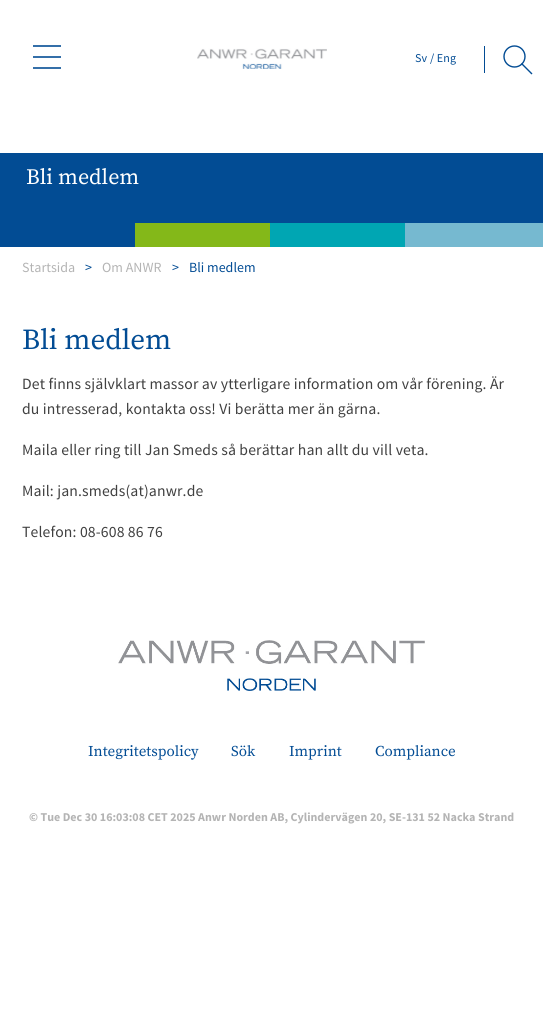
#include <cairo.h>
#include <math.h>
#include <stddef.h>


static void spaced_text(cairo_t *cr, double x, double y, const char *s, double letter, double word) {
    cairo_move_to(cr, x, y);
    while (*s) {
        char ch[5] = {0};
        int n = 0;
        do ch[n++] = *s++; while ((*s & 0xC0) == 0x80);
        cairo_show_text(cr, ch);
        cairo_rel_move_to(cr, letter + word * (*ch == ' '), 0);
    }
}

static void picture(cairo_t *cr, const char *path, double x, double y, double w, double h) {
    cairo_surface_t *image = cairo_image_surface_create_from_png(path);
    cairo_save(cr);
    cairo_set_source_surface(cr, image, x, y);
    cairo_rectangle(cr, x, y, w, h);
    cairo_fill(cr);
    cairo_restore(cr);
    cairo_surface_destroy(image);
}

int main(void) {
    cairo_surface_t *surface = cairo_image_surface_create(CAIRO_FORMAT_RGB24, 543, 1014);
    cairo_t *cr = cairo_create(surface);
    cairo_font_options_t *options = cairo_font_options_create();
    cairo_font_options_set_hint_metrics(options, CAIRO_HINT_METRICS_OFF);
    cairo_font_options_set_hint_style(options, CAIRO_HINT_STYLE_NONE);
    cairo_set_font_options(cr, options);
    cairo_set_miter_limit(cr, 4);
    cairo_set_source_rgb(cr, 1, 1, 1);
    cairo_paint(cr);
    cairo_new_path(cr);
    cairo_move_to(cr, 33, 46);
    cairo_line_to(cr, 61, 46);
    cairo_move_to(cr, 33, 57);
    cairo_line_to(cr, 61, 57);
    cairo_set_source_rgb(cr, 0.008, 0.298, 0.58);
    cairo_set_line_width(cr, 1.6);
    cairo_stroke(cr);
    cairo_set_source_rgb(cr, 0.208, 0.439, 0.663);
    cairo_rectangle(cr, 33, 67, 28, 2);
    cairo_fill(cr);
    picture(cr, "img1.png", 197, 48, 130, 21);
    cairo_select_font_face(cr, "Source Sans Pro", CAIRO_FONT_SLANT_NORMAL, CAIRO_FONT_WEIGHT_NORMAL);
    cairo_set_font_size(cr, 12);
    cairo_set_source_rgb(cr, 0.008, 0.298, 0.58);
    spaced_text(cr, 415, 62, "Sv / Eng", 0.15, 0);
    cairo_rectangle(cr, 484, 46, 1, 27);
    cairo_fill(cr);
    cairo_arc(cr, 514.5, 56.5, 10.5, 0, 2 * M_PI);
    cairo_set_line_width(cr, 1.4);
    cairo_stroke(cr);
    cairo_new_path(cr);
    cairo_move_to(cr, 521.5, 63.5);
    cairo_line_to(cr, 532, 74);
    cairo_set_line_join(cr, CAIRO_LINE_JOIN_ROUND);
    cairo_stroke(cr);
    cairo_rectangle(cr, 0, 153, 543, 70);
    cairo_fill(cr);
    cairo_select_font_face(cr, "Source Serif Pro", CAIRO_FONT_SLANT_NORMAL, CAIRO_FONT_WEIGHT_NORMAL);
    cairo_set_font_size(cr, 22);
    cairo_set_source_rgb(cr, 1, 1, 1);
    cairo_move_to(cr, 26, 184);
    cairo_show_text(cr, "Bli medlem");
    cairo_set_source_rgb(cr, 0.008, 0.298, 0.58);
    cairo_rectangle(cr, 0, 223, 135, 24);
    cairo_fill(cr);
    cairo_set_source_rgb(cr, 0.518, 0.722, 0.098);
    cairo_rectangle(cr, 135, 223, 135, 24);
    cairo_fill(cr);
    cairo_set_source_rgb(cr, 0, 0.651, 0.702);
    cairo_rectangle(cr, 270, 223, 135, 24);
    cairo_fill(cr);
    cairo_set_source_rgb(cr, 0.463, 0.725, 0.816);
    cairo_rectangle(cr, 405, 223, 138, 24);
    cairo_fill(cr);
    cairo_select_font_face(cr, "Source Sans Pro", CAIRO_FONT_SLANT_NORMAL, CAIRO_FONT_WEIGHT_NORMAL);
    cairo_set_font_size(cr, 14);
    cairo_set_source_rgb(cr, 0.706, 0.706, 0.706);
    cairo_move_to(cr, 22, 272);
    cairo_show_text(cr, "Startsida");
    cairo_set_source_rgb(cr, 0.008, 0.298, 0.58);
    cairo_move_to(cr, 85, 272);
    cairo_show_text(cr, ">");
    cairo_set_source_rgb(cr, 0.706, 0.706, 0.706);
    cairo_move_to(cr, 102, 272);
    cairo_show_text(cr, "Om ANWR");
    cairo_set_source_rgb(cr, 0.008, 0.298, 0.58);
    cairo_move_to(cr, 172, 272);
    cairo_show_text(cr, ">");
    cairo_move_to(cr, 189, 272);
    cairo_show_text(cr, "Bli medlem");
    cairo_select_font_face(cr, "Source Serif Pro", CAIRO_FONT_SLANT_NORMAL, CAIRO_FONT_WEIGHT_NORMAL);
    cairo_set_font_size(cr, 29);
    cairo_move_to(cr, 22, 349);
    cairo_show_text(cr, "Bli medlem");
    cairo_select_font_face(cr, "Source Sans Pro", CAIRO_FONT_SLANT_NORMAL, CAIRO_FONT_WEIGHT_NORMAL);
    cairo_set_font_size(cr, 15.65);
    cairo_set_source_rgb(cr, 0.251, 0.251, 0.251);
    spaced_text(cr, 22, 389, "Det finns självklart massor av ytterligare information om vår förening. Är", 0.15, 0);
    spaced_text(cr, 22, 414, "du intresserad, kontakta oss! Vi berätta mer än gärna.", 0.15, 0);
    spaced_text(cr, 22, 455, "Maila eller ring till Jan Smeds så berättar han allt du vill veta.", 0.15, 0);
    spaced_text(cr, 22, 496, "Mail: jan.smeds(at)anwr.de", 0.15, 0);
    spaced_text(cr, 22, 537, "Telefon: 08-608 86 76", 0.15, 0);
    picture(cr, "img2.png", 118, 640, 307, 51);
    cairo_select_font_face(cr, "Source Serif Pro", CAIRO_FONT_SLANT_NORMAL, CAIRO_FONT_WEIGHT_NORMAL);
    cairo_set_font_size(cr, 15);
    cairo_set_source_rgb(cr, 0.008, 0.298, 0.58);
    cairo_move_to(cr, 88, 756);
    cairo_show_text(cr, "Integritetspolicy");
    cairo_move_to(cr, 231, 756);
    cairo_show_text(cr, "Sök");
    cairo_move_to(cr, 289, 756);
    cairo_show_text(cr, "Imprint");
    cairo_move_to(cr, 375, 756);
    cairo_show_text(cr, "Compliance");
    cairo_select_font_face(cr, "Source Sans Pro", CAIRO_FONT_SLANT_NORMAL, CAIRO_FONT_WEIGHT_BOLD);
    cairo_set_font_size(cr, 12);
    cairo_set_source_rgb(cr, 0.706, 0.706, 0.706);
    cairo_move_to(cr, 29, 821);
    cairo_show_text(cr, "© Tue Dec 30 16:03:08 CET 2025 Anwr Norden AB, Cylindervägen 20, SE-131 52 Nacka Strand");
    cairo_surface_write_to_png(surface, "page.png");
    cairo_font_options_destroy(options);
    cairo_destroy(cr);
    cairo_surface_destroy(surface);
    return 0;
}
